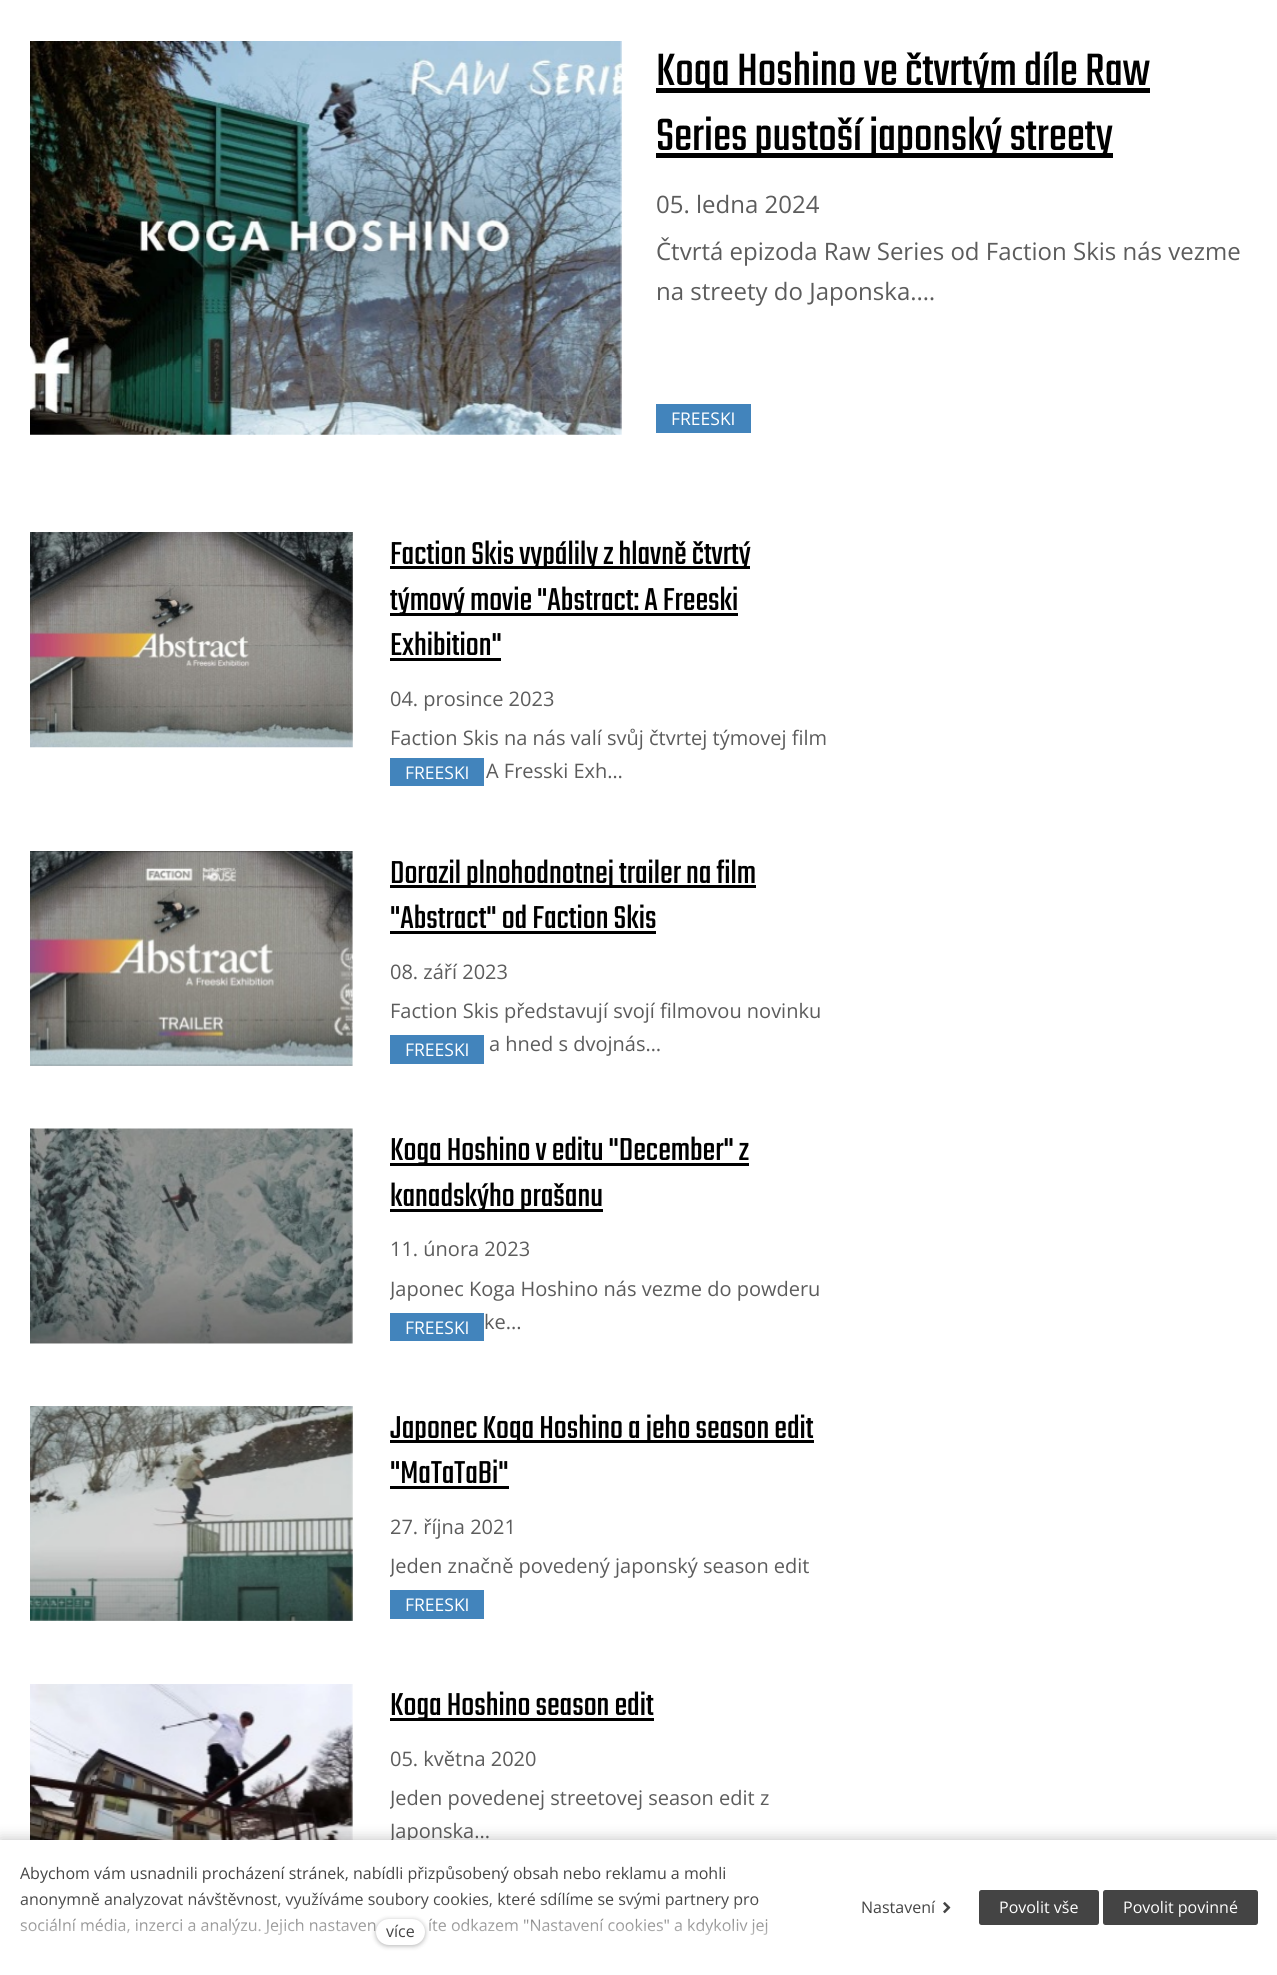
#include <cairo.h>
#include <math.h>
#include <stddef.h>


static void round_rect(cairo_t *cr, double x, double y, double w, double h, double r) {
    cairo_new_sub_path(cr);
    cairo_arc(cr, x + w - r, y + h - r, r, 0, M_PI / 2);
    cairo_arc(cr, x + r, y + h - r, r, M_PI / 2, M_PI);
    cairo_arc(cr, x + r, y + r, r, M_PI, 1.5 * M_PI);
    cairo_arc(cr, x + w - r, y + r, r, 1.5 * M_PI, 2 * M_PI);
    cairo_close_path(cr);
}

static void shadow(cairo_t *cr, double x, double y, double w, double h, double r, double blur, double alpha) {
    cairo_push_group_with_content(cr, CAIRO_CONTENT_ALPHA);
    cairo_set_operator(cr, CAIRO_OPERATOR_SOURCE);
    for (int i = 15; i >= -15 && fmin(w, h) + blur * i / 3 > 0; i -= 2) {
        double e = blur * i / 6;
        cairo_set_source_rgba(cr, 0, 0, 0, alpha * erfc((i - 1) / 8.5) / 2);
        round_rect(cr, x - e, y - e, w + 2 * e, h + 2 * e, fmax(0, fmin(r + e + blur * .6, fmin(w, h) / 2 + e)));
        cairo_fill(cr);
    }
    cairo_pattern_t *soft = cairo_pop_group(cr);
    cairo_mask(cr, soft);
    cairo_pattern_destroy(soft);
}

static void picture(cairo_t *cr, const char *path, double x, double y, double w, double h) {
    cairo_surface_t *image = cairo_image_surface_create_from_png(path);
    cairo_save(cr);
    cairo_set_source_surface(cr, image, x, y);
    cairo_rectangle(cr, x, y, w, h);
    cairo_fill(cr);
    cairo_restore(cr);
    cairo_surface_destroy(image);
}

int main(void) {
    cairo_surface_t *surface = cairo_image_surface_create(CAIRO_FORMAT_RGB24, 1277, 1975);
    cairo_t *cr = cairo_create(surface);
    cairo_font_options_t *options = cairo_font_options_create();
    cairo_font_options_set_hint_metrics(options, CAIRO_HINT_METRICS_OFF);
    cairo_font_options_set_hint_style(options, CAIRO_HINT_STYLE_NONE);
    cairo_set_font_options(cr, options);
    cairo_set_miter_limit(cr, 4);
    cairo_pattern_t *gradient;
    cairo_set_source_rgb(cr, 1, 1, 1);
    cairo_paint(cr);
    picture(cr, "img1.png", 30, 41, 592, 394);
    cairo_set_source_rgb(cr, 0, 0, 0);
    cairo_rectangle(cr, 656, 88, 494, 5);
    cairo_fill(cr);
    cairo_select_font_face(cr, "Teko", CAIRO_FONT_SLANT_NORMAL, CAIRO_FONT_WEIGHT_NORMAL);
    cairo_set_font_size(cr, 50);
    cairo_move_to(cr, 656, 85);
    cairo_show_text(cr, "Koga Hoshino ve čtvrtým díle Raw");
    cairo_rectangle(cr, 656, 153, 457, 5);
    cairo_fill(cr);
    cairo_move_to(cr, 656, 150);
    cairo_show_text(cr, "Series pustoší japonský streety");
    cairo_select_font_face(cr, "Open Sans", CAIRO_FONT_SLANT_NORMAL, CAIRO_FONT_WEIGHT_NORMAL);
    cairo_set_font_size(cr, 24);
    cairo_set_source_rgb(cr, 0.361, 0.361, 0.361);
    cairo_move_to(cr, 656, 213);
    cairo_show_text(cr, "05. ledna 2024");
    cairo_move_to(cr, 656, 260);
    cairo_show_text(cr, "Čtvrtá epizoda Raw Series od Faction Skis nás vezme");
    cairo_move_to(cr, 656, 300);
    cairo_show_text(cr, "na streety do Japonska.…");
    cairo_set_source_rgb(cr, 0.259, 0.518, 0.737);
    cairo_rectangle(cr, 656, 404, 95, 29);
    cairo_fill(cr);
    cairo_set_font_size(cr, 17.5);
    cairo_set_source_rgb(cr, 1, 1, 1);
    cairo_move_to(cr, 671, 425);
    cairo_show_text(cr, "FREESKI");
    picture(cr, "img2.png", 30, 532, 323, 216);
    cairo_set_source_rgb(cr, 0, 0, 0);
    cairo_rectangle(cr, 390, 566, 360, 3);
    cairo_fill(cr);
    cairo_select_font_face(cr, "Teko", CAIRO_FONT_SLANT_NORMAL, CAIRO_FONT_WEIGHT_NORMAL);
    cairo_set_font_size(cr, 35);
    cairo_move_to(cr, 390, 564);
    cairo_show_text(cr, "Faction Skis vypálily z hlavně čtvrtý");
    cairo_rectangle(cr, 390, 613, 348, 3);
    cairo_fill(cr);
    cairo_move_to(cr, 390, 610);
    cairo_show_text(cr, "týmový movie \"Abstract: A Freeski");
    cairo_move_to(cr, 390, 655);
    cairo_show_text(cr, "Exhibition\"");
    cairo_rectangle(cr, 390, 658, 111, 3);
    cairo_fill(cr);
    cairo_select_font_face(cr, "Open Sans", CAIRO_FONT_SLANT_NORMAL, CAIRO_FONT_WEIGHT_NORMAL);
    cairo_set_font_size(cr, 20);
    cairo_set_source_rgb(cr, 0.361, 0.361, 0.361);
    cairo_move_to(cr, 390, 706);
    cairo_show_text(cr, "04. prosince 2023");
    cairo_move_to(cr, 390, 745);
    cairo_show_text(cr, "Faction Skis na nás valí svůj čtvrtej týmovej film");
    cairo_move_to(cr, 486, 778);
    cairo_show_text(cr, "A Fresski Exh…");
    cairo_set_source_rgb(cr, 0.259, 0.518, 0.737);
    cairo_rectangle(cr, 390, 758, 94, 28);
    cairo_fill(cr);
    cairo_set_font_size(cr, 17.5);
    cairo_set_source_rgb(cr, 1, 1, 1);
    cairo_move_to(cr, 405, 779);
    cairo_show_text(cr, "FREESKI");
    picture(cr, "img3.png", 30, 851, 323, 215);
    cairo_set_source_rgb(cr, 0, 0, 0);
    cairo_rectangle(cr, 390, 885, 366, 3);
    cairo_fill(cr);
    cairo_select_font_face(cr, "Teko", CAIRO_FONT_SLANT_NORMAL, CAIRO_FONT_WEIGHT_NORMAL);
    cairo_set_font_size(cr, 35);
    cairo_move_to(cr, 390, 883);
    cairo_show_text(cr, "Dorazil plnohodnotnej trailer na film");
    cairo_move_to(cr, 390, 928);
    cairo_show_text(cr, "\"Abstract\" od Faction Skis");
    cairo_rectangle(cr, 390, 931, 266, 3);
    cairo_fill(cr);
    cairo_select_font_face(cr, "Open Sans", CAIRO_FONT_SLANT_NORMAL, CAIRO_FONT_WEIGHT_NORMAL);
    cairo_set_font_size(cr, 20);
    cairo_set_source_rgb(cr, 0.361, 0.361, 0.361);
    cairo_move_to(cr, 390, 979);
    cairo_show_text(cr, "08. září 2023");
    cairo_move_to(cr, 390, 1018);
    cairo_show_text(cr, "Faction Skis představují svojí filmovou novinku");
    cairo_move_to(cr, 489, 1051);
    cairo_show_text(cr, "a hned s dvojnás…");
    cairo_set_source_rgb(cr, 0.259, 0.518, 0.737);
    cairo_rectangle(cr, 390, 1035, 94, 29);
    cairo_fill(cr);
    cairo_set_font_size(cr, 17.5);
    cairo_set_source_rgb(cr, 1, 1, 1);
    cairo_move_to(cr, 405, 1056);
    cairo_show_text(cr, "FREESKI");
    picture(cr, "img4.png", 30, 1128, 323, 216);
    cairo_set_source_rgb(cr, 0, 0, 0);
    cairo_rectangle(cr, 390, 1163, 359, 3);
    cairo_fill(cr);
    cairo_select_font_face(cr, "Teko", CAIRO_FONT_SLANT_NORMAL, CAIRO_FONT_WEIGHT_NORMAL);
    cairo_set_font_size(cr, 35);
    cairo_move_to(cr, 390, 1160);
    cairo_show_text(cr, "Koga Hoshino v editu \"December\" z");
    cairo_rectangle(cr, 390, 1209, 213, 3);
    cairo_fill(cr);
    cairo_move_to(cr, 390, 1206);
    cairo_show_text(cr, "kanadskýho prašanu");
    cairo_select_font_face(cr, "Open Sans", CAIRO_FONT_SLANT_NORMAL, CAIRO_FONT_WEIGHT_NORMAL);
    cairo_set_font_size(cr, 20);
    cairo_set_source_rgb(cr, 0.361, 0.361, 0.361);
    cairo_move_to(cr, 390, 1256);
    cairo_show_text(cr, "11. února 2023");
    cairo_save(cr);
    cairo_rectangle(cr, 390, 1273, 440, 67);
    cairo_clip(cr);
    cairo_move_to(cr, 390, 1296);
    cairo_show_text(cr, "Japonec Koga Hoshino nás vezme do powderu");
    cairo_restore(cr);
    cairo_move_to(cr, 484, 1329);
    cairo_show_text(cr, "ke...");
    cairo_set_source_rgb(cr, 0.259, 0.518, 0.737);
    cairo_rectangle(cr, 390, 1313, 94, 28);
    cairo_fill(cr);
    cairo_set_font_size(cr, 17.5);
    cairo_set_source_rgb(cr, 1, 1, 1);
    cairo_move_to(cr, 405, 1334);
    cairo_show_text(cr, "FREESKI");
    picture(cr, "img5.png", 30, 1406, 323, 215);
    cairo_set_source_rgb(cr, 0, 0, 0);
    cairo_rectangle(cr, 390, 1440, 424, 3);
    cairo_fill(cr);
    cairo_select_font_face(cr, "Teko", CAIRO_FONT_SLANT_NORMAL, CAIRO_FONT_WEIGHT_NORMAL);
    cairo_set_font_size(cr, 35);
    cairo_move_to(cr, 390, 1438);
    cairo_show_text(cr, "Japonec Koga Hoshino a jeho season edit");
    cairo_move_to(cr, 390, 1483);
    cairo_show_text(cr, "\"MaTaTaBi\"");
    cairo_rectangle(cr, 390, 1486, 119, 3);
    cairo_fill(cr);
    cairo_select_font_face(cr, "Open Sans", CAIRO_FONT_SLANT_NORMAL, CAIRO_FONT_WEIGHT_NORMAL);
    cairo_set_font_size(cr, 20);
    cairo_set_source_rgb(cr, 0.361, 0.361, 0.361);
    cairo_move_to(cr, 390, 1534);
    cairo_show_text(cr, "27. října 2021");
    cairo_save(cr);
    cairo_rectangle(cr, 390, 1549, 440, 69);
    cairo_clip(cr);
    cairo_move_to(cr, 390, 1573);
    cairo_show_text(cr, "Jeden značně povedený japonský season edit");
    cairo_restore(cr);
    cairo_set_source_rgb(cr, 0.259, 0.518, 0.737);
    cairo_rectangle(cr, 390, 1590, 94, 29);
    cairo_fill(cr);
    cairo_set_font_size(cr, 17.5);
    cairo_set_source_rgb(cr, 1, 1, 1);
    cairo_move_to(cr, 405, 1611);
    cairo_show_text(cr, "FREESKI");
    picture(cr, "img6.png", 30, 1684, 323, 156);
    cairo_set_source_rgb(cr, 0, 0, 0);
    cairo_rectangle(cr, 390, 1718, 264, 3);
    cairo_fill(cr);
    cairo_select_font_face(cr, "Teko", CAIRO_FONT_SLANT_NORMAL, CAIRO_FONT_WEIGHT_NORMAL);
    cairo_set_font_size(cr, 35);
    cairo_move_to(cr, 390, 1715);
    cairo_show_text(cr, "Koga Hoshino season edit");
    cairo_select_font_face(cr, "Open Sans", CAIRO_FONT_SLANT_NORMAL, CAIRO_FONT_WEIGHT_NORMAL);
    cairo_set_font_size(cr, 20);
    cairo_set_source_rgb(cr, 0.361, 0.361, 0.361);
    cairo_move_to(cr, 390, 1766);
    cairo_show_text(cr, "05. května 2020");
    cairo_save(cr);
    cairo_rectangle(cr, 390, 1781, 440, 68);
    cairo_clip(cr);
    cairo_move_to(cr, 390, 1805);
    cairo_show_text(cr, "Jeden povedenej streetovej season edit z");
    cairo_restore(cr);
    cairo_move_to(cr, 390, 1838);
    cairo_show_text(cr, "Japonska...");
    cairo_set_source_rgb(cr, 0, 0, 0);
    shadow(cr, 0, 1840, 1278, 135, 0, 7.5, 0.25);
    cairo_set_source_rgb(cr, 1, 1, 1);
    cairo_rectangle(cr, 0, 1840, 1277, 135);
    cairo_fill(cr);
    cairo_set_font_size(cr, 16);
    cairo_set_source_rgb(cr, 0.267, 0.267, 0.267);
    cairo_move_to(cr, 20, 1879);
    cairo_show_text(cr, "Abychom vám usnadnili procházení stránek, nabídli přizpůsobený obsah nebo reklamu a mohli");
    cairo_move_to(cr, 20, 1905);
    cairo_show_text(cr, "anonymně analyzovat návštěvnost, využíváme soubory cookies, které sdílíme se svými partnery pro");
    cairo_move_to(cr, 20, 1931);
    cairo_show_text(cr, "sociální média, inzerci a analýzu. Jejich nastaven");
    cairo_move_to(cr, 428, 1931);
    cairo_show_text(cr, "íte odkazem \"Nastavení cookies\" a kdykoliv jej");
    gradient = cairo_pattern_create_linear(401, 1955, 401, 1900);
    cairo_pattern_add_color_stop_rgba(gradient, 0, 1, 1, 1, 1);
    cairo_pattern_add_color_stop_rgba(gradient, 1, 1, 1, 1, 0);
    cairo_set_source(cr, gradient);
    cairo_pattern_destroy(gradient);
    cairo_rectangle(cr, 20, 1901, 748, 34);
    cairo_fill(cr);
    cairo_set_source_rgb(cr, 0, 0, 0);
    shadow(cr, 376, 1920, 49, 26, 13, 2.5, 0.3);
    cairo_set_source_rgb(cr, 1, 1, 1);
    round_rect(cr, 376, 1919, 49, 26, 13);
    cairo_fill(cr);
    cairo_set_source_rgb(cr, 0.267, 0.267, 0.267);
    cairo_move_to(cr, 386, 1937);
    cairo_show_text(cr, "více");
    cairo_move_to(cr, 861, 1913);
    cairo_show_text(cr, "Nastavení");
    picture(cr, "img7.png", 943, 1902, 8, 12);
    round_rect(cr, 979, 1890, 120, 35, 2.5);
    cairo_fill(cr);
    cairo_set_source_rgb(cr, 1, 1, 1);
    cairo_move_to(cr, 999, 1913);
    cairo_show_text(cr, "Povolit vše");
    cairo_set_source_rgb(cr, 0.267, 0.267, 0.267);
    round_rect(cr, 1103, 1890, 155, 35, 2.5);
    cairo_fill(cr);
    cairo_set_source_rgb(cr, 1, 1, 1);
    cairo_move_to(cr, 1123, 1913);
    cairo_show_text(cr, "Povolit povinné");
    cairo_surface_write_to_png(surface, "page.png");
    cairo_font_options_destroy(options);
    cairo_destroy(cr);
    cairo_surface_destroy(surface);
    return 0;
}
